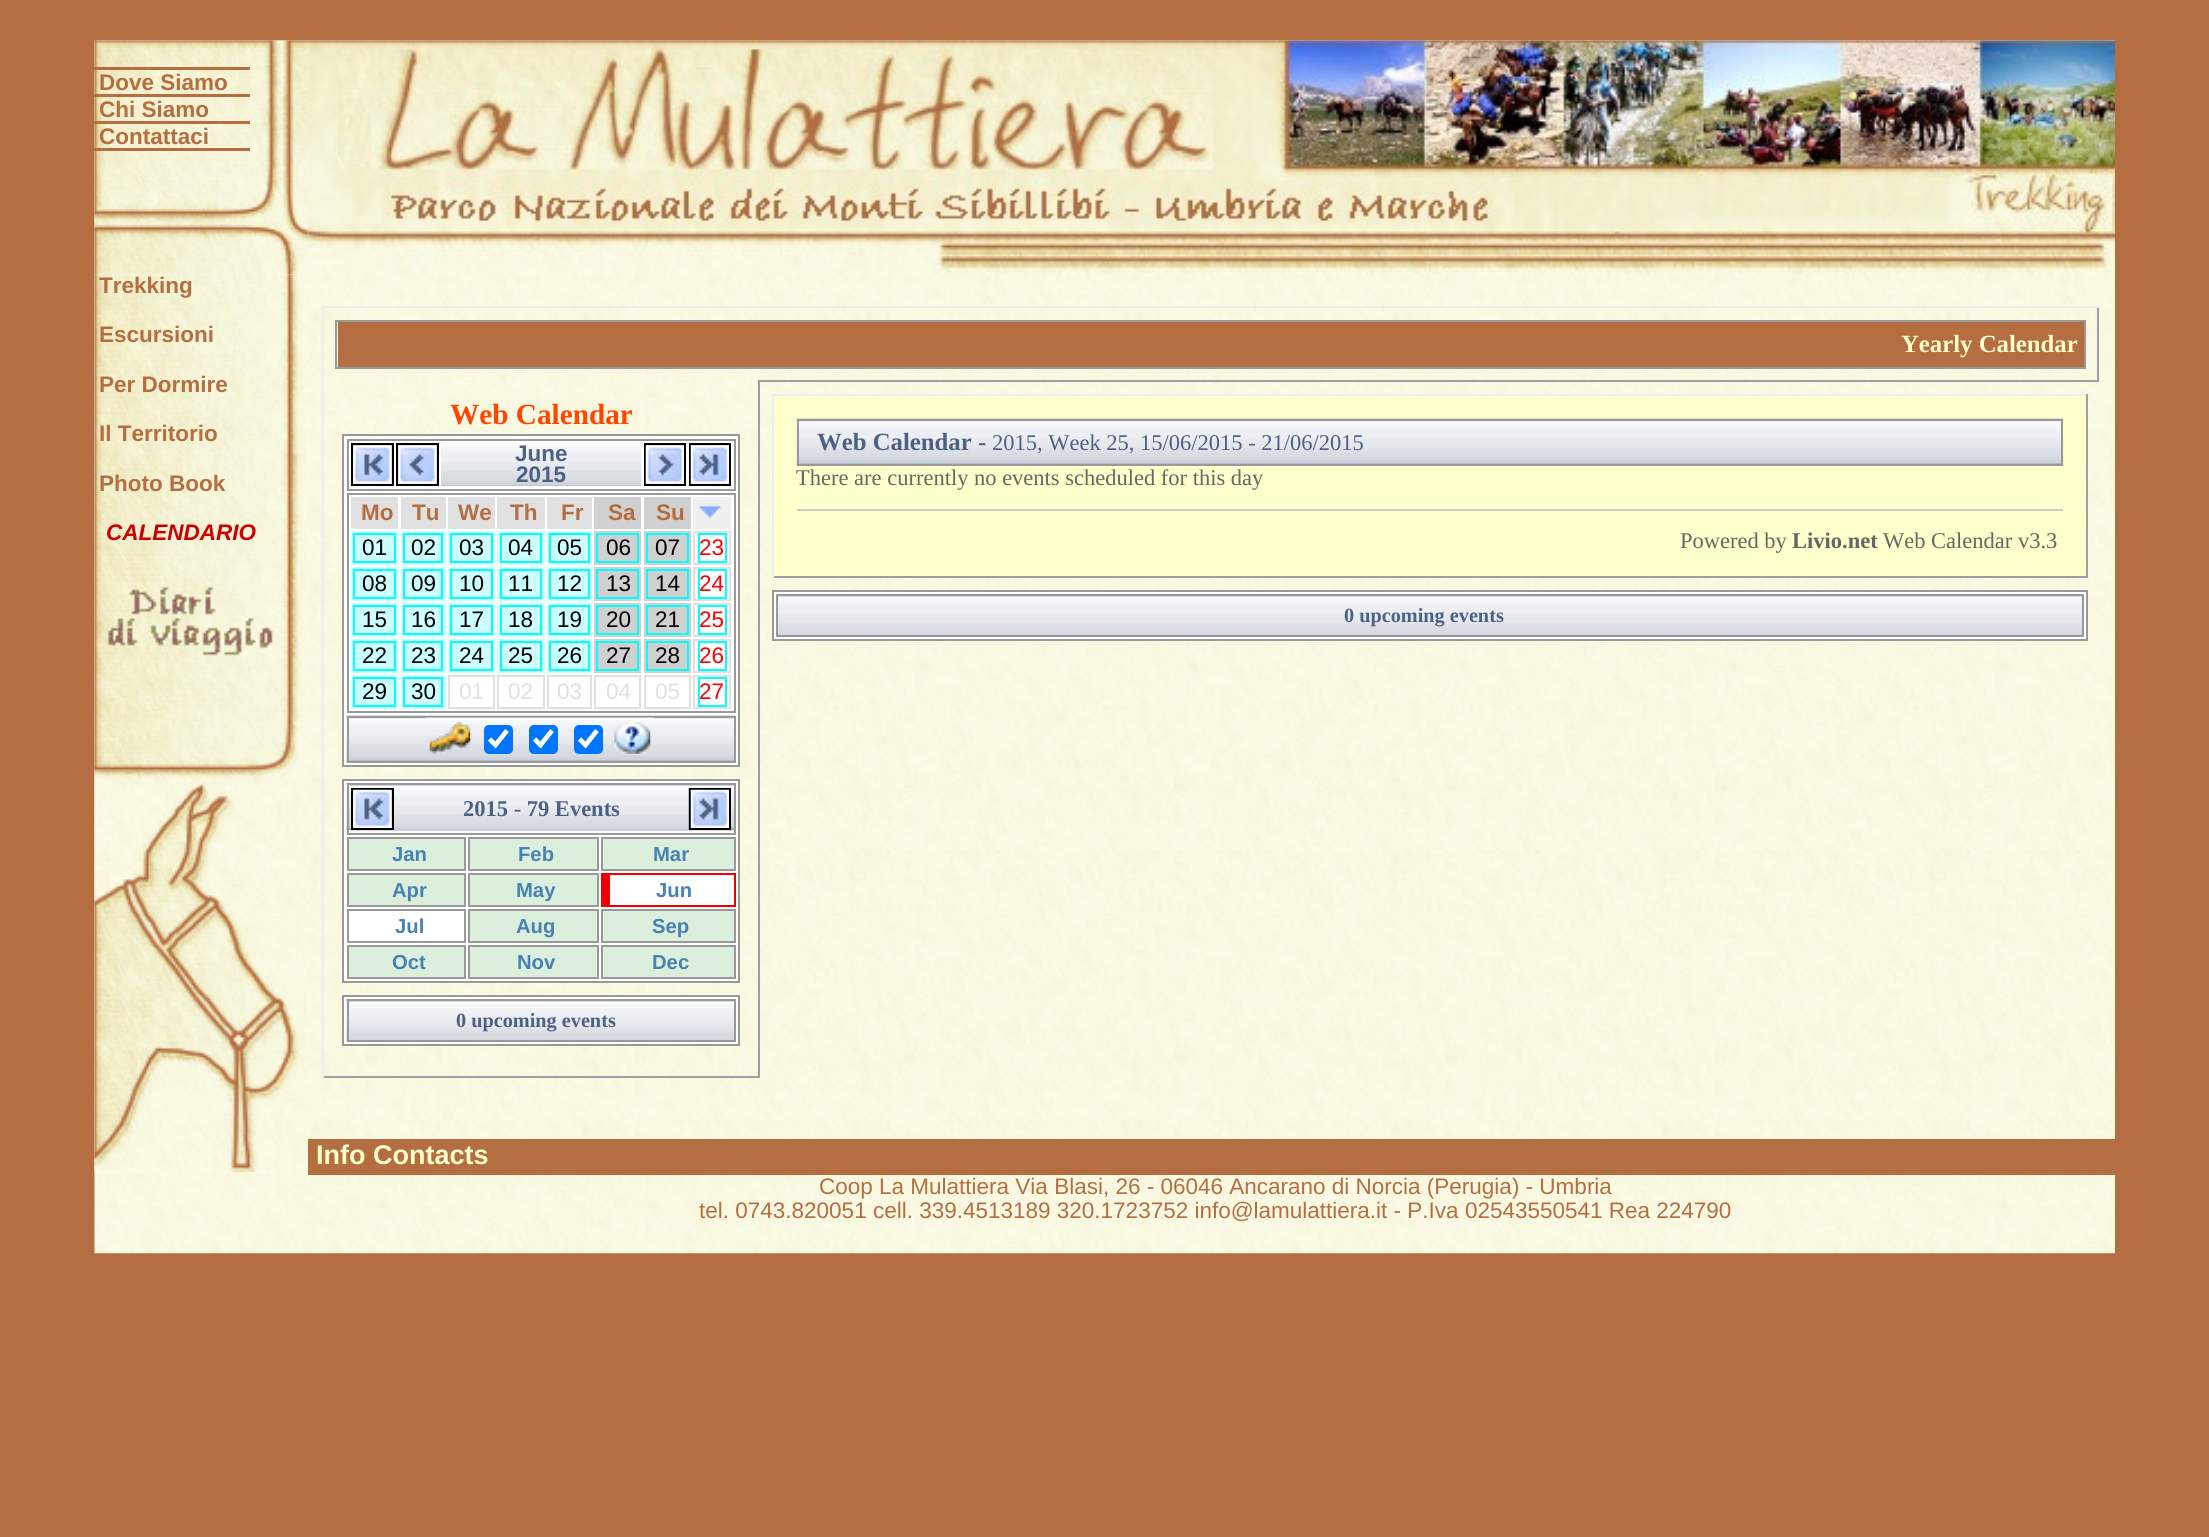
#include <cairo.h>
#include <math.h>
#include <stddef.h>


static void round_rect(cairo_t *cr, double x, double y, double w, double h, double r) {
    cairo_new_sub_path(cr);
    cairo_arc(cr, x + w - r, y + h - r, r, 0, M_PI / 2);
    cairo_arc(cr, x + r, y + h - r, r, M_PI / 2, M_PI);
    cairo_arc(cr, x + r, y + r, r, M_PI, 1.5 * M_PI);
    cairo_arc(cr, x + w - r, y + r, r, 1.5 * M_PI, 2 * M_PI);
    cairo_close_path(cr);
}

static void picture(cairo_t *cr, const char *path, double x, double y, double w, double h) {
    cairo_surface_t *image = cairo_image_surface_create_from_png(path);
    cairo_save(cr);
    cairo_set_source_surface(cr, image, x, y);
    cairo_rectangle(cr, x, y, w, h);
    cairo_fill(cr);
    cairo_restore(cr);
    cairo_surface_destroy(image);
}

int main(void) {
    cairo_surface_t *surface = cairo_image_surface_create(CAIRO_FORMAT_RGB24, 2209, 1537);
    cairo_t *cr = cairo_create(surface);
    cairo_font_options_t *options = cairo_font_options_create();
    cairo_font_options_set_hint_metrics(options, CAIRO_HINT_METRICS_OFF);
    cairo_font_options_set_hint_style(options, CAIRO_HINT_STYLE_NONE);
    cairo_set_font_options(cr, options);
    cairo_set_miter_limit(cr, 4);
    cairo_set_source_rgb(cr, 0.706, 0.431, 0.255);
    cairo_paint(cr);
    picture(cr, "img2.png", 94, 40, 2021, 1214);
    picture(cr, "img3.png", 94, 40, 215, 235);
    cairo_set_source_rgb(cr, 0.71, 0.431, 0.259);
    cairo_rectangle(cr, 94, 67, 156, 3);
    cairo_fill(cr);
    cairo_select_font_face(cr, "Liberation Sans", CAIRO_FONT_SLANT_NORMAL, CAIRO_FONT_WEIGHT_BOLD);
    cairo_set_font_size(cr, 22.5);
    cairo_set_source_rgb(cr, 0.706, 0.431, 0.255);
    cairo_move_to(cr, 99, 90);
    cairo_show_text(cr, "Dove Siamo");
    cairo_set_source_rgb(cr, 0.71, 0.431, 0.259);
    cairo_rectangle(cr, 94, 94, 156, 3);
    cairo_fill(cr);
    cairo_set_source_rgb(cr, 0.706, 0.431, 0.255);
    cairo_move_to(cr, 99, 117);
    cairo_show_text(cr, "Chi Siamo");
    cairo_set_source_rgb(cr, 0.71, 0.431, 0.259);
    cairo_rectangle(cr, 94, 121, 156, 3);
    cairo_fill(cr);
    cairo_set_source_rgb(cr, 0.706, 0.431, 0.255);
    cairo_move_to(cr, 99, 144);
    cairo_show_text(cr, "Contattaci");
    cairo_set_source_rgb(cr, 0.71, 0.431, 0.259);
    cairo_rectangle(cr, 94, 148, 156, 3);
    cairo_fill(cr);
    picture(cr, "img5.png", 94, 274, 212, 507);
    cairo_set_source_rgb(cr, 0.706, 0.431, 0.255);
    cairo_move_to(cr, 99, 293);
    cairo_show_text(cr, "Trekking");
    cairo_move_to(cr, 99, 342);
    cairo_show_text(cr, "Escursioni");
    cairo_move_to(cr, 99, 392);
    cairo_show_text(cr, "Per Dormire");
    cairo_move_to(cr, 99, 441);
    cairo_show_text(cr, "Il Territorio");
    cairo_move_to(cr, 99, 491);
    cairo_show_text(cr, "Photo Book");
    cairo_select_font_face(cr, "Liberation Sans", CAIRO_FONT_SLANT_ITALIC, CAIRO_FONT_WEIGHT_BOLD);
    cairo_set_source_rgb(cr, 0.8, 0, 0);
    cairo_move_to(cr, 106, 540);
    cairo_show_text(cr, "CALENDARIO");
    picture(cr, "img1.png", 107, 586, 168, 70);
    picture(cr, "img4.png", 308, 40, 1807, 235);
    picture(cr, "img6.png", 94, 780, 212, 393);
    cairo_set_source_rgb(cr, 0.933, 0.933, 0.933);
    cairo_rectangle(cr, 322, 306, 1777, 2);
    cairo_fill(cr);
    cairo_rectangle(cr, 322, 306, 2, 772);
    cairo_fill(cr);
    cairo_set_source_rgb(cr, 0.624, 0.624, 0.624);
    cairo_rectangle(cr, 2097, 308, 2, 72);
    cairo_fill(cr);
    cairo_rectangle(cr, 336, 321, 1749, 47);
    cairo_set_source_rgb(cr, 0.6, 0.6, 0.6);
    cairo_stroke(cr);
    cairo_set_source_rgb(cr, 0.706, 0.431, 0.255);
    cairo_rectangle(cr, 338, 322, 1746, 45);
    cairo_fill(cr);
    cairo_select_font_face(cr, "Liberation Serif", CAIRO_FONT_SLANT_NORMAL, CAIRO_FONT_WEIGHT_BOLD);
    cairo_set_font_size(cr, 24.75);
    cairo_set_source_rgb(cr, 1, 1, 0.8);
    cairo_move_to(cr, 1901, 352);
    cairo_show_text(cr, "Yearly Calendar");
    cairo_set_source_rgb(cr, 0.624, 0.624, 0.624);
    cairo_rectangle(cr, 324, 1076, 434, 2);
    cairo_fill(cr);
    cairo_set_font_size(cr, 29.25);
    cairo_set_source_rgb(cr, 1, 0.271, 0);
    cairo_move_to(cr, 450, 424);
    cairo_show_text(cr, "Web Calendar");
    cairo_set_source_rgb(cr, 1, 1, 1);
    cairo_rectangle(cr, 343, 435, 396, 331);
    cairo_fill_preserve(cr);
    cairo_set_source_rgb(cr, 0.6, 0.6, 0.6);
    cairo_stroke(cr);
    cairo_rectangle(cr, 348, 440, 387, 50);
    cairo_stroke(cr);
    cairo_set_source_rgb(cr, 0.753, 0.753, 0.753);
    cairo_rectangle(cr, 352, 444, 41, 41);
    cairo_fill_preserve(cr);
    cairo_set_source_rgb(cr, 0, 0, 0);
    cairo_stroke(cr);
    picture(cr, "img7.png", 353, 445, 39, 39);
    cairo_set_source_rgb(cr, 0.753, 0.753, 0.753);
    cairo_rectangle(cr, 397, 444, 41, 41);
    cairo_fill_preserve(cr);
    cairo_set_source_rgb(cr, 0, 0, 0);
    cairo_stroke(cr);
    picture(cr, "img8.png", 398, 445, 39, 39);
    picture(cr, "img9.png", 441, 443, 201, 43);
    cairo_select_font_face(cr, "Liberation Sans", CAIRO_FONT_SLANT_NORMAL, CAIRO_FONT_WEIGHT_BOLD);
    cairo_set_font_size(cr, 22.5);
    cairo_set_source_rgb(cr, 0.302, 0.38, 0.522);
    cairo_move_to(cr, 515, 461);
    cairo_show_text(cr, "June");
    cairo_move_to(cr, 516, 482);
    cairo_show_text(cr, "2015");
    cairo_set_source_rgb(cr, 0.753, 0.753, 0.753);
    cairo_rectangle(cr, 645, 444, 40, 41);
    cairo_fill_preserve(cr);
    cairo_set_source_rgb(cr, 0, 0, 0);
    cairo_stroke(cr);
    picture(cr, "img10.png", 645, 445, 39, 39);
    cairo_set_source_rgb(cr, 0.753, 0.753, 0.753);
    cairo_rectangle(cr, 690, 444, 40, 41);
    cairo_fill_preserve(cr);
    cairo_set_source_rgb(cr, 0, 0, 0);
    cairo_stroke(cr);
    picture(cr, "img11.png", 690, 445, 39, 39);
    cairo_rectangle(cr, 348, 494, 387, 218);
    cairo_set_source_rgb(cr, 0.6, 0.6, 0.6);
    cairo_stroke(cr);
    cairo_set_source_rgb(cr, 0.878, 0.878, 0.878);
    cairo_rectangle(cr, 351, 497, 47, 32);
    cairo_fill(cr);
    cairo_set_source_rgb(cr, 0.706, 0.431, 0.255);
    cairo_move_to(cr, 361, 520);
    cairo_show_text(cr, "Mo");
    cairo_set_source_rgb(cr, 0.878, 0.878, 0.878);
    cairo_rectangle(cr, 401, 497, 45, 32);
    cairo_fill(cr);
    cairo_set_source_rgb(cr, 0.706, 0.431, 0.255);
    cairo_move_to(cr, 412, 520);
    cairo_show_text(cr, "Tu");
    cairo_set_source_rgb(cr, 0.878, 0.878, 0.878);
    cairo_rectangle(cr, 448, 497, 47, 32);
    cairo_fill(cr);
    cairo_set_source_rgb(cr, 0.706, 0.431, 0.255);
    cairo_move_to(cr, 458, 520);
    cairo_show_text(cr, "We");
    cairo_set_source_rgb(cr, 0.878, 0.878, 0.878);
    cairo_rectangle(cr, 497, 497, 48, 32);
    cairo_fill(cr);
    cairo_set_source_rgb(cr, 0.706, 0.431, 0.255);
    cairo_move_to(cr, 510, 520);
    cairo_show_text(cr, "Th");
    cairo_set_source_rgb(cr, 0.878, 0.878, 0.878);
    cairo_rectangle(cr, 547, 497, 45, 32);
    cairo_fill(cr);
    cairo_set_source_rgb(cr, 0.706, 0.431, 0.255);
    cairo_move_to(cr, 561, 520);
    cairo_show_text(cr, "Fr");
    cairo_set_source_rgb(cr, 0.816, 0.816, 0.816);
    cairo_rectangle(cr, 594, 497, 47, 32);
    cairo_fill(cr);
    cairo_set_source_rgb(cr, 0.706, 0.431, 0.255);
    cairo_move_to(cr, 608, 520);
    cairo_show_text(cr, "Sa");
    cairo_set_source_rgb(cr, 0.816, 0.816, 0.816);
    cairo_rectangle(cr, 644, 497, 47, 32);
    cairo_fill(cr);
    cairo_set_source_rgb(cr, 0.706, 0.431, 0.255);
    cairo_move_to(cr, 656, 520);
    cairo_show_text(cr, "Su");
    cairo_set_source_rgb(cr, 0.941, 0.941, 0.941);
    cairo_rectangle(cr, 693, 497, 38, 32);
    cairo_fill(cr);
    picture(cr, "img12.png", 699, 505, 22, 14);
    cairo_set_source_rgb(cr, 0.8, 1, 1);
    cairo_rectangle(cr, 351, 531, 47, 34);
    cairo_fill(cr);
    cairo_rectangle(cr, 354, 534, 41, 28);
    cairo_set_source_rgb(cr, 0, 1, 1);
    cairo_stroke(cr);
    cairo_select_font_face(cr, "Liberation Sans", CAIRO_FONT_SLANT_NORMAL, CAIRO_FONT_WEIGHT_NORMAL);
    cairo_set_source_rgb(cr, 0, 0, 0);
    cairo_move_to(cr, 362, 555);
    cairo_show_text(cr, "01");
    cairo_set_source_rgb(cr, 0.8, 1, 1);
    cairo_rectangle(cr, 401, 531, 45, 34);
    cairo_fill(cr);
    cairo_rectangle(cr, 404, 534, 38, 28);
    cairo_set_source_rgb(cr, 0, 1, 1);
    cairo_stroke(cr);
    cairo_set_source_rgb(cr, 0, 0, 0);
    cairo_move_to(cr, 411, 555);
    cairo_show_text(cr, "02");
    cairo_set_source_rgb(cr, 0.8, 1, 1);
    cairo_rectangle(cr, 448, 531, 47, 34);
    cairo_fill(cr);
    cairo_rectangle(cr, 451, 534, 41, 28);
    cairo_set_source_rgb(cr, 0, 1, 1);
    cairo_stroke(cr);
    cairo_set_source_rgb(cr, 0, 0, 0);
    cairo_move_to(cr, 459, 555);
    cairo_show_text(cr, "03");
    cairo_set_source_rgb(cr, 0.8, 1, 1);
    cairo_rectangle(cr, 497, 531, 48, 34);
    cairo_fill(cr);
    cairo_rectangle(cr, 501, 534, 40, 28);
    cairo_set_source_rgb(cr, 0, 1, 1);
    cairo_stroke(cr);
    cairo_set_source_rgb(cr, 0, 0, 0);
    cairo_move_to(cr, 508, 555);
    cairo_show_text(cr, "04");
    cairo_set_source_rgb(cr, 0.8, 1, 1);
    cairo_rectangle(cr, 547, 531, 45, 34);
    cairo_fill(cr);
    cairo_rectangle(cr, 550, 534, 39, 28);
    cairo_set_source_rgb(cr, 0, 1, 1);
    cairo_stroke(cr);
    cairo_set_source_rgb(cr, 0, 0, 0);
    cairo_move_to(cr, 557, 555);
    cairo_show_text(cr, "05");
    cairo_set_source_rgb(cr, 0.816, 0.816, 0.816);
    cairo_rectangle(cr, 594, 531, 47, 34);
    cairo_fill(cr);
    cairo_rectangle(cr, 597, 534, 41, 28);
    cairo_set_source_rgb(cr, 0, 1, 1);
    cairo_stroke(cr);
    cairo_set_source_rgb(cr, 0, 0, 0);
    cairo_move_to(cr, 606, 555);
    cairo_show_text(cr, "06");
    cairo_set_source_rgb(cr, 0.816, 0.816, 0.816);
    cairo_rectangle(cr, 644, 531, 47, 34);
    cairo_fill(cr);
    cairo_rectangle(cr, 647, 534, 41, 28);
    cairo_set_source_rgb(cr, 0, 1, 1);
    cairo_stroke(cr);
    cairo_set_source_rgb(cr, 0, 0, 0);
    cairo_move_to(cr, 655, 555);
    cairo_show_text(cr, "07");
    cairo_rectangle(cr, 694, 532, 36, 32);
    cairo_set_source_rgb(cr, 0.878, 0.878, 0.878);
    cairo_stroke(cr);
    cairo_rectangle(cr, 699, 534, 27, 28);
    cairo_set_source_rgb(cr, 0, 1, 1);
    cairo_stroke(cr);
    cairo_set_source_rgb(cr, 1, 0, 0.012);
    cairo_move_to(cr, 699, 555);
    cairo_show_text(cr, "23");
    cairo_set_source_rgb(cr, 0.8, 1, 1);
    cairo_rectangle(cr, 351, 567, 47, 34);
    cairo_fill(cr);
    cairo_rectangle(cr, 354, 570, 41, 28);
    cairo_set_source_rgb(cr, 0, 1, 1);
    cairo_stroke(cr);
    cairo_set_source_rgb(cr, 0, 0, 0);
    cairo_move_to(cr, 362, 591);
    cairo_show_text(cr, "08");
    cairo_set_source_rgb(cr, 0.8, 1, 1);
    cairo_rectangle(cr, 401, 567, 45, 34);
    cairo_fill(cr);
    cairo_rectangle(cr, 404, 570, 38, 28);
    cairo_set_source_rgb(cr, 0, 1, 1);
    cairo_stroke(cr);
    cairo_set_source_rgb(cr, 0, 0, 0);
    cairo_move_to(cr, 411, 591);
    cairo_show_text(cr, "09");
    cairo_set_source_rgb(cr, 0.8, 1, 1);
    cairo_rectangle(cr, 448, 567, 47, 34);
    cairo_fill(cr);
    cairo_rectangle(cr, 451, 570, 41, 28);
    cairo_set_source_rgb(cr, 0, 1, 1);
    cairo_stroke(cr);
    cairo_set_source_rgb(cr, 0, 0, 0);
    cairo_move_to(cr, 459, 591);
    cairo_show_text(cr, "10");
    cairo_set_source_rgb(cr, 0.8, 1, 1);
    cairo_rectangle(cr, 497, 567, 48, 34);
    cairo_fill(cr);
    cairo_rectangle(cr, 501, 570, 40, 28);
    cairo_set_source_rgb(cr, 0, 1, 1);
    cairo_stroke(cr);
    cairo_set_source_rgb(cr, 0, 0, 0);
    cairo_move_to(cr, 508, 591);
    cairo_show_text(cr, "11");
    cairo_set_source_rgb(cr, 0.8, 1, 1);
    cairo_rectangle(cr, 547, 567, 45, 34);
    cairo_fill(cr);
    cairo_rectangle(cr, 550, 570, 39, 28);
    cairo_set_source_rgb(cr, 0, 1, 1);
    cairo_stroke(cr);
    cairo_set_source_rgb(cr, 0, 0, 0);
    cairo_move_to(cr, 557, 591);
    cairo_show_text(cr, "12");
    cairo_set_source_rgb(cr, 0.816, 0.816, 0.816);
    cairo_rectangle(cr, 594, 567, 47, 34);
    cairo_fill(cr);
    cairo_rectangle(cr, 597, 570, 41, 28);
    cairo_set_source_rgb(cr, 0, 1, 1);
    cairo_stroke(cr);
    cairo_set_source_rgb(cr, 0, 0, 0);
    cairo_move_to(cr, 606, 591);
    cairo_show_text(cr, "13");
    cairo_set_source_rgb(cr, 0.816, 0.816, 0.816);
    cairo_rectangle(cr, 644, 567, 47, 34);
    cairo_fill(cr);
    cairo_rectangle(cr, 647, 570, 41, 28);
    cairo_set_source_rgb(cr, 0, 1, 1);
    cairo_stroke(cr);
    cairo_set_source_rgb(cr, 0, 0, 0);
    cairo_move_to(cr, 655, 591);
    cairo_show_text(cr, "14");
    cairo_rectangle(cr, 694, 568, 36, 32);
    cairo_set_source_rgb(cr, 0.878, 0.878, 0.878);
    cairo_stroke(cr);
    cairo_rectangle(cr, 699, 570, 27, 28);
    cairo_set_source_rgb(cr, 0, 1, 1);
    cairo_stroke(cr);
    cairo_set_source_rgb(cr, 1, 0, 0.012);
    cairo_move_to(cr, 699, 591);
    cairo_show_text(cr, "24");
    cairo_set_source_rgb(cr, 0.8, 1, 1);
    cairo_rectangle(cr, 351, 603, 47, 34);
    cairo_fill(cr);
    cairo_rectangle(cr, 354, 606, 41, 28);
    cairo_set_source_rgb(cr, 0, 1, 1);
    cairo_stroke(cr);
    cairo_set_source_rgb(cr, 0, 0, 0);
    cairo_move_to(cr, 362, 627);
    cairo_show_text(cr, "15");
    cairo_set_source_rgb(cr, 0.8, 1, 1);
    cairo_rectangle(cr, 401, 603, 45, 34);
    cairo_fill(cr);
    cairo_rectangle(cr, 404, 606, 38, 28);
    cairo_set_source_rgb(cr, 0, 1, 1);
    cairo_stroke(cr);
    cairo_set_source_rgb(cr, 0, 0, 0);
    cairo_move_to(cr, 411, 627);
    cairo_show_text(cr, "16");
    cairo_set_source_rgb(cr, 0.8, 1, 1);
    cairo_rectangle(cr, 448, 603, 47, 34);
    cairo_fill(cr);
    cairo_rectangle(cr, 451, 606, 41, 28);
    cairo_set_source_rgb(cr, 0, 1, 1);
    cairo_stroke(cr);
    cairo_set_source_rgb(cr, 0, 0, 0);
    cairo_move_to(cr, 459, 627);
    cairo_show_text(cr, "17");
    cairo_set_source_rgb(cr, 0.8, 1, 1);
    cairo_rectangle(cr, 497, 603, 48, 34);
    cairo_fill(cr);
    cairo_rectangle(cr, 501, 606, 40, 28);
    cairo_set_source_rgb(cr, 0, 1, 1);
    cairo_stroke(cr);
    cairo_set_source_rgb(cr, 0, 0, 0);
    cairo_move_to(cr, 508, 627);
    cairo_show_text(cr, "18");
    cairo_set_source_rgb(cr, 0.8, 1, 1);
    cairo_rectangle(cr, 547, 603, 45, 34);
    cairo_fill(cr);
    cairo_rectangle(cr, 550, 606, 39, 28);
    cairo_set_source_rgb(cr, 0, 1, 1);
    cairo_stroke(cr);
    cairo_set_source_rgb(cr, 0, 0, 0);
    cairo_move_to(cr, 557, 627);
    cairo_show_text(cr, "19");
    cairo_set_source_rgb(cr, 0.816, 0.816, 0.816);
    cairo_rectangle(cr, 594, 603, 47, 34);
    cairo_fill(cr);
    cairo_rectangle(cr, 597, 606, 41, 28);
    cairo_set_source_rgb(cr, 0, 1, 1);
    cairo_stroke(cr);
    cairo_set_source_rgb(cr, 0, 0, 0);
    cairo_move_to(cr, 606, 627);
    cairo_show_text(cr, "20");
    cairo_set_source_rgb(cr, 0.816, 0.816, 0.816);
    cairo_rectangle(cr, 644, 603, 47, 34);
    cairo_fill(cr);
    cairo_rectangle(cr, 647, 606, 41, 28);
    cairo_set_source_rgb(cr, 0, 1, 1);
    cairo_stroke(cr);
    cairo_set_source_rgb(cr, 0, 0, 0);
    cairo_move_to(cr, 655, 627);
    cairo_show_text(cr, "21");
    cairo_rectangle(cr, 694, 604, 36, 32);
    cairo_set_source_rgb(cr, 0.878, 0.878, 0.878);
    cairo_stroke(cr);
    cairo_rectangle(cr, 699, 606, 27, 28);
    cairo_set_source_rgb(cr, 0, 1, 1);
    cairo_stroke(cr);
    cairo_set_source_rgb(cr, 1, 0, 0.012);
    cairo_move_to(cr, 699, 627);
    cairo_show_text(cr, "25");
    cairo_set_source_rgb(cr, 0.8, 1, 1);
    cairo_rectangle(cr, 351, 639, 47, 34);
    cairo_fill(cr);
    cairo_rectangle(cr, 354, 642, 41, 28);
    cairo_set_source_rgb(cr, 0, 1, 1);
    cairo_stroke(cr);
    cairo_set_source_rgb(cr, 0, 0, 0);
    cairo_move_to(cr, 362, 663);
    cairo_show_text(cr, "22");
    cairo_set_source_rgb(cr, 0.8, 1, 1);
    cairo_rectangle(cr, 401, 639, 45, 34);
    cairo_fill(cr);
    cairo_rectangle(cr, 404, 642, 38, 28);
    cairo_set_source_rgb(cr, 0, 1, 1);
    cairo_stroke(cr);
    cairo_set_source_rgb(cr, 0, 0, 0);
    cairo_move_to(cr, 411, 663);
    cairo_show_text(cr, "23");
    cairo_set_source_rgb(cr, 0.8, 1, 1);
    cairo_rectangle(cr, 448, 639, 47, 34);
    cairo_fill(cr);
    cairo_rectangle(cr, 451, 642, 41, 28);
    cairo_set_source_rgb(cr, 0, 1, 1);
    cairo_stroke(cr);
    cairo_set_source_rgb(cr, 0, 0, 0);
    cairo_move_to(cr, 459, 663);
    cairo_show_text(cr, "24");
    cairo_set_source_rgb(cr, 0.8, 1, 1);
    cairo_rectangle(cr, 497, 639, 48, 34);
    cairo_fill(cr);
    cairo_rectangle(cr, 501, 642, 40, 28);
    cairo_set_source_rgb(cr, 0, 1, 1);
    cairo_stroke(cr);
    cairo_set_source_rgb(cr, 0, 0, 0);
    cairo_move_to(cr, 508, 663);
    cairo_show_text(cr, "25");
    cairo_set_source_rgb(cr, 0.8, 1, 1);
    cairo_rectangle(cr, 547, 639, 45, 34);
    cairo_fill(cr);
    cairo_rectangle(cr, 550, 642, 39, 28);
    cairo_set_source_rgb(cr, 0, 1, 1);
    cairo_stroke(cr);
    cairo_set_source_rgb(cr, 0, 0, 0);
    cairo_move_to(cr, 557, 663);
    cairo_show_text(cr, "26");
    cairo_set_source_rgb(cr, 0.816, 0.816, 0.816);
    cairo_rectangle(cr, 594, 639, 47, 34);
    cairo_fill(cr);
    cairo_rectangle(cr, 597, 642, 41, 28);
    cairo_set_source_rgb(cr, 0, 1, 1);
    cairo_stroke(cr);
    cairo_set_source_rgb(cr, 0, 0, 0);
    cairo_move_to(cr, 606, 663);
    cairo_show_text(cr, "27");
    cairo_set_source_rgb(cr, 0.816, 0.816, 0.816);
    cairo_rectangle(cr, 644, 639, 47, 34);
    cairo_fill(cr);
    cairo_rectangle(cr, 647, 642, 41, 28);
    cairo_set_source_rgb(cr, 0, 1, 1);
    cairo_stroke(cr);
    cairo_set_source_rgb(cr, 0, 0, 0);
    cairo_move_to(cr, 655, 663);
    cairo_show_text(cr, "28");
    cairo_rectangle(cr, 694, 640, 36, 32);
    cairo_set_source_rgb(cr, 0.878, 0.878, 0.878);
    cairo_stroke(cr);
    cairo_rectangle(cr, 699, 642, 27, 28);
    cairo_set_source_rgb(cr, 0, 1, 1);
    cairo_stroke(cr);
    cairo_set_source_rgb(cr, 1, 0, 0.012);
    cairo_move_to(cr, 699, 663);
    cairo_show_text(cr, "26");
    cairo_set_source_rgb(cr, 0.8, 1, 1);
    cairo_rectangle(cr, 351, 675, 47, 34);
    cairo_fill(cr);
    cairo_rectangle(cr, 354, 678, 41, 28);
    cairo_set_source_rgb(cr, 0, 1, 1);
    cairo_stroke(cr);
    cairo_set_source_rgb(cr, 0, 0, 0);
    cairo_move_to(cr, 362, 699);
    cairo_show_text(cr, "29");
    cairo_set_source_rgb(cr, 0.8, 1, 1);
    cairo_rectangle(cr, 401, 675, 45, 34);
    cairo_fill(cr);
    cairo_rectangle(cr, 404, 678, 38, 28);
    cairo_set_source_rgb(cr, 0, 1, 1);
    cairo_stroke(cr);
    cairo_set_source_rgb(cr, 0, 0, 0);
    cairo_move_to(cr, 411, 699);
    cairo_show_text(cr, "30");
    cairo_rectangle(cr, 449, 676, 45, 32);
    cairo_set_source_rgb(cr, 0.878, 0.878, 0.878);
    cairo_stroke(cr);
    cairo_move_to(cr, 459, 699);
    cairo_show_text(cr, "01");
    cairo_rectangle(cr, 498, 676, 46, 32);
    cairo_stroke(cr);
    cairo_move_to(cr, 508, 699);
    cairo_show_text(cr, "02");
    cairo_rectangle(cr, 548, 676, 43, 32);
    cairo_stroke(cr);
    cairo_move_to(cr, 557, 699);
    cairo_show_text(cr, "03");
    cairo_rectangle(cr, 595, 676, 45, 32);
    cairo_stroke(cr);
    cairo_move_to(cr, 606, 699);
    cairo_show_text(cr, "04");
    cairo_rectangle(cr, 645, 676, 45, 32);
    cairo_stroke(cr);
    cairo_move_to(cr, 655, 699);
    cairo_show_text(cr, "05");
    cairo_rectangle(cr, 694, 676, 36, 32);
    cairo_stroke(cr);
    cairo_rectangle(cr, 699, 678, 27, 28);
    cairo_set_source_rgb(cr, 0, 1, 1);
    cairo_stroke(cr);
    cairo_set_source_rgb(cr, 1, 0, 0.012);
    cairo_move_to(cr, 699, 699);
    cairo_show_text(cr, "27");
    picture(cr, "img13.png", 346, 715, 390, 48);
    cairo_rectangle(cr, 348, 717, 387, 45);
    cairo_set_source_rgb(cr, 0.6, 0.6, 0.6);
    cairo_stroke(cr);
    picture(cr, "img14.png", 425, 717, 230, 2);
    picture(cr, "img15.png", 429, 722, 42, 32);
    cairo_set_source_rgb(cr, 0, 0.459, 1);
    round_rect(cr, 484, 725, 29, 29, 5);
    cairo_fill(cr);
    cairo_new_path(cr);
    cairo_move_to(cr, 489.5, 739);
    cairo_line_to(cr, 495.5, 745);
    cairo_line_to(cr, 507, 730.5);
    cairo_set_source_rgb(cr, 1, 1, 1);
    cairo_set_line_width(cr, 4.7);
    cairo_stroke(cr);
    cairo_set_source_rgb(cr, 0, 0.459, 1);
    round_rect(cr, 529, 725, 29, 29, 5);
    cairo_fill(cr);
    cairo_new_path(cr);
    cairo_move_to(cr, 534.5, 739);
    cairo_line_to(cr, 540.5, 745);
    cairo_line_to(cr, 552, 730.5);
    cairo_set_source_rgb(cr, 1, 1, 1);
    cairo_stroke(cr);
    cairo_set_source_rgb(cr, 0, 0.459, 1);
    round_rect(cr, 574, 725, 29, 29, 5);
    cairo_fill(cr);
    cairo_new_path(cr);
    cairo_move_to(cr, 579.5, 739);
    cairo_line_to(cr, 585.5, 745);
    cairo_line_to(cr, 597, 730.5);
    cairo_set_source_rgb(cr, 1, 1, 1);
    cairo_stroke(cr);
    picture(cr, "img16.png", 614, 722, 37, 32);
    cairo_rectangle(cr, 343, 780, 396, 202);
    cairo_fill_preserve(cr);
    cairo_set_source_rgb(cr, 0.6, 0.6, 0.6);
    cairo_set_line_width(cr, 2);
    cairo_stroke(cr);
    picture(cr, "img17.png", 346, 783, 388, 52);
    cairo_rectangle(cr, 348, 784, 387, 50);
    cairo_stroke(cr);
    cairo_set_source_rgb(cr, 0.753, 0.753, 0.753);
    cairo_rectangle(cr, 353, 790, 39, 38);
    cairo_fill(cr);
    cairo_set_source_rgb(cr, 0.4, 0.6, 0.8);
    cairo_rectangle(cr, 688, 788, 1, 42);
    cairo_fill(cr);
    picture(cr, "img19.png", 393, 788, 296, 43);
    cairo_rectangle(cr, 352, 789, 41, 40);
    cairo_set_source_rgb(cr, 0, 0, 0);
    cairo_stroke(cr);
    picture(cr, "img18.png", 353, 789, 39, 39);
    cairo_select_font_face(cr, "Liberation Serif", CAIRO_FONT_SLANT_NORMAL, CAIRO_FONT_WEIGHT_BOLD);
    cairo_set_source_rgb(cr, 0.302, 0.38, 0.522);
    cairo_move_to(cr, 463, 816);
    cairo_show_text(cr, "2015 - 79 Events");
    cairo_rectangle(cr, 690, 789, 40, 40);
    cairo_set_source_rgb(cr, 0, 0, 0);
    cairo_stroke(cr);
    picture(cr, "img20.png", 690, 789, 39, 39);
    cairo_set_source_rgb(cr, 0.863, 0.933, 0.863);
    cairo_rectangle(cr, 348, 838, 117, 32);
    cairo_fill_preserve(cr);
    cairo_set_source_rgb(cr, 0.6, 0.6, 0.6);
    cairo_stroke(cr);
    cairo_select_font_face(cr, "Liberation Sans", CAIRO_FONT_SLANT_NORMAL, CAIRO_FONT_WEIGHT_BOLD);
    cairo_set_font_size(cr, 20.25);
    cairo_set_source_rgb(cr, 0.275, 0.51, 0.706);
    cairo_move_to(cr, 392, 861);
    cairo_show_text(cr, "Jan");
    cairo_set_source_rgb(cr, 0.863, 0.933, 0.863);
    cairo_rectangle(cr, 469, 838, 129, 32);
    cairo_fill_preserve(cr);
    cairo_set_source_rgb(cr, 0.6, 0.6, 0.6);
    cairo_stroke(cr);
    cairo_set_source_rgb(cr, 0.275, 0.51, 0.706);
    cairo_move_to(cr, 518, 861);
    cairo_show_text(cr, "Feb");
    cairo_set_source_rgb(cr, 0.863, 0.933, 0.863);
    cairo_rectangle(cr, 602, 838, 133, 32);
    cairo_fill_preserve(cr);
    cairo_set_source_rgb(cr, 0.6, 0.6, 0.6);
    cairo_stroke(cr);
    cairo_set_source_rgb(cr, 0.275, 0.51, 0.706);
    cairo_move_to(cr, 653, 861);
    cairo_show_text(cr, "Mar");
    cairo_set_source_rgb(cr, 0.863, 0.933, 0.863);
    cairo_rectangle(cr, 348, 874, 117, 32);
    cairo_fill_preserve(cr);
    cairo_set_source_rgb(cr, 0.6, 0.6, 0.6);
    cairo_stroke(cr);
    cairo_set_source_rgb(cr, 0.275, 0.51, 0.706);
    cairo_move_to(cr, 392, 897);
    cairo_show_text(cr, "Apr");
    cairo_set_source_rgb(cr, 0.863, 0.933, 0.863);
    cairo_rectangle(cr, 469, 874, 129, 32);
    cairo_fill_preserve(cr);
    cairo_set_source_rgb(cr, 0.6, 0.6, 0.6);
    cairo_stroke(cr);
    cairo_set_source_rgb(cr, 0.275, 0.51, 0.706);
    cairo_move_to(cr, 516, 897);
    cairo_show_text(cr, "May");
    cairo_set_source_rgb(cr, 0.941, 0, 0);
    cairo_rectangle(cr, 610, 873, 126, 2);
    cairo_fill(cr);
    cairo_rectangle(cr, 734, 873, 2, 34);
    cairo_fill(cr);
    cairo_rectangle(cr, 610, 905, 126, 2);
    cairo_fill(cr);
    cairo_rectangle(cr, 601, 873, 9, 34);
    cairo_fill(cr);
    cairo_set_source_rgb(cr, 0.275, 0.51, 0.706);
    cairo_move_to(cr, 656, 897);
    cairo_show_text(cr, "Jun");
    cairo_rectangle(cr, 348, 910, 117, 32);
    cairo_set_source_rgb(cr, 0.6, 0.6, 0.6);
    cairo_stroke(cr);
    cairo_set_source_rgb(cr, 0.275, 0.51, 0.706);
    cairo_move_to(cr, 395, 933);
    cairo_show_text(cr, "Jul");
    cairo_set_source_rgb(cr, 0.863, 0.933, 0.863);
    cairo_rectangle(cr, 469, 910, 129, 32);
    cairo_fill_preserve(cr);
    cairo_set_source_rgb(cr, 0.6, 0.6, 0.6);
    cairo_stroke(cr);
    cairo_set_source_rgb(cr, 0.275, 0.51, 0.706);
    cairo_move_to(cr, 516, 933);
    cairo_show_text(cr, "Aug");
    cairo_set_source_rgb(cr, 0.863, 0.933, 0.863);
    cairo_rectangle(cr, 602, 910, 133, 32);
    cairo_fill_preserve(cr);
    cairo_set_source_rgb(cr, 0.6, 0.6, 0.6);
    cairo_stroke(cr);
    cairo_set_source_rgb(cr, 0.275, 0.51, 0.706);
    cairo_move_to(cr, 652, 933);
    cairo_show_text(cr, "Sep");
    cairo_set_source_rgb(cr, 0.863, 0.933, 0.863);
    cairo_rectangle(cr, 348, 946, 117, 32);
    cairo_fill_preserve(cr);
    cairo_set_source_rgb(cr, 0.6, 0.6, 0.6);
    cairo_stroke(cr);
    cairo_set_source_rgb(cr, 0.275, 0.51, 0.706);
    cairo_move_to(cr, 392, 969);
    cairo_show_text(cr, "Oct");
    cairo_set_source_rgb(cr, 0.863, 0.933, 0.863);
    cairo_rectangle(cr, 469, 946, 129, 32);
    cairo_fill_preserve(cr);
    cairo_set_source_rgb(cr, 0.6, 0.6, 0.6);
    cairo_stroke(cr);
    cairo_set_source_rgb(cr, 0.275, 0.51, 0.706);
    cairo_move_to(cr, 517, 969);
    cairo_show_text(cr, "Nov");
    cairo_set_source_rgb(cr, 0.863, 0.933, 0.863);
    cairo_rectangle(cr, 602, 946, 133, 32);
    cairo_fill_preserve(cr);
    cairo_set_source_rgb(cr, 0.6, 0.6, 0.6);
    cairo_stroke(cr);
    cairo_set_source_rgb(cr, 0.275, 0.51, 0.706);
    cairo_move_to(cr, 652, 969);
    cairo_show_text(cr, "Dec");
    cairo_set_source_rgb(cr, 1, 1, 1);
    cairo_rectangle(cr, 343, 996, 396, 49);
    cairo_fill_preserve(cr);
    cairo_set_source_rgb(cr, 0.6, 0.6, 0.6);
    cairo_stroke(cr);
    picture(cr, "img21.png", 346, 999, 388, 43);
    cairo_rectangle(cr, 348, 1000, 387, 41);
    cairo_stroke(cr);
    cairo_select_font_face(cr, "Liberation Serif", CAIRO_FONT_SLANT_NORMAL, CAIRO_FONT_WEIGHT_BOLD);
    cairo_set_source_rgb(cr, 0.302, 0.38, 0.522);
    cairo_move_to(cr, 456, 1027);
    cairo_show_text(cr, "0 upcoming events");
    cairo_set_source_rgb(cr, 0.624, 0.624, 0.624);
    cairo_rectangle(cr, 758, 380, 1341, 2);
    cairo_fill(cr);
    cairo_rectangle(cr, 758, 380, 2, 698);
    cairo_fill(cr);
    cairo_set_source_rgb(cr, 1, 1, 0.8);
    cairo_rectangle(cr, 774, 396, 1312, 180);
    cairo_fill(cr);
    cairo_set_source_rgb(cr, 0.933, 0.933, 0.933);
    cairo_rectangle(cr, 772, 394, 1316, 2);
    cairo_fill(cr);
    cairo_set_source_rgb(cr, 0.624, 0.624, 0.624);
    cairo_rectangle(cr, 2086, 394, 2, 184);
    cairo_fill(cr);
    cairo_rectangle(cr, 772, 576, 1316, 2);
    cairo_fill(cr);
    cairo_set_source_rgb(cr, 0.933, 0.933, 0.933);
    cairo_rectangle(cr, 772, 394, 2, 184);
    cairo_fill(cr);
    picture(cr, "img22.png", 796, 418, 1268, 48);
    cairo_rectangle(cr, 798, 420, 1264, 45);
    cairo_set_source_rgb(cr, 0.6, 0.6, 0.6);
    cairo_stroke(cr);
    cairo_set_font_size(cr, 24.75);
    cairo_set_source_rgb(cr, 0.302, 0.38, 0.522);
    cairo_move_to(cr, 817, 450);
    cairo_show_text(cr, "Web Calendar -");
    cairo_select_font_face(cr, "Liberation Serif", CAIRO_FONT_SLANT_NORMAL, CAIRO_FONT_WEIGHT_NORMAL);
    cairo_set_font_size(cr, 22.5);
    cairo_move_to(cr, 992, 450);
    cairo_show_text(cr, "2015, Week 25, 15/06/2015 - 21/06/2015");
    cairo_set_source_rgb(cr, 0.4, 0.4, 0.4);
    cairo_move_to(cr, 796, 485);
    cairo_show_text(cr, "There are currently no events scheduled for this day");
    cairo_set_source_rgb(cr, 0.8, 0.8, 0.8);
    cairo_rectangle(cr, 797, 509, 1266, 2);
    cairo_fill(cr);
    cairo_set_source_rgb(cr, 0.4, 0.4, 0.4);
    cairo_move_to(cr, 1680, 548);
    cairo_show_text(cr, "Powered by");
    cairo_select_font_face(cr, "Liberation Serif", CAIRO_FONT_SLANT_NORMAL, CAIRO_FONT_WEIGHT_BOLD);
    cairo_move_to(cr, 1792, 548);
    cairo_show_text(cr, "Livio.net");
    cairo_select_font_face(cr, "Liberation Serif", CAIRO_FONT_SLANT_NORMAL, CAIRO_FONT_WEIGHT_NORMAL);
    cairo_move_to(cr, 1883, 548);
    cairo_show_text(cr, "Web Calendar v3.3");
    cairo_set_source_rgb(cr, 1, 1, 1);
    cairo_rectangle(cr, 773, 591, 1314, 49);
    cairo_fill_preserve(cr);
    cairo_set_source_rgb(cr, 0.6, 0.6, 0.6);
    cairo_stroke(cr);
    picture(cr, "img23.png", 778, 596, 1304, 39);
    cairo_rectangle(cr, 777, 595, 1306, 41);
    cairo_stroke(cr);
    cairo_select_font_face(cr, "Liberation Serif", CAIRO_FONT_SLANT_NORMAL, CAIRO_FONT_WEIGHT_BOLD);
    cairo_set_font_size(cr, 20.25);
    cairo_set_source_rgb(cr, 0.302, 0.38, 0.522);
    cairo_move_to(cr, 1344, 622);
    cairo_show_text(cr, "0 upcoming events");
    cairo_set_source_rgb(cr, 0.706, 0.431, 0.255);
    cairo_rectangle(cr, 308, 1139, 1807, 36);
    cairo_fill(cr);
    cairo_select_font_face(cr, "Liberation Sans", CAIRO_FONT_SLANT_NORMAL, CAIRO_FONT_WEIGHT_BOLD);
    cairo_set_font_size(cr, 27);
    cairo_set_source_rgb(cr, 1, 1, 0.8);
    cairo_move_to(cr, 316, 1164);
    cairo_show_text(cr, "Info Contacts");
    cairo_select_font_face(cr, "Liberation Sans", CAIRO_FONT_SLANT_NORMAL, CAIRO_FONT_WEIGHT_NORMAL);
    cairo_set_font_size(cr, 22.5);
    cairo_set_source_rgb(cr, 0.706, 0.431, 0.255);
    cairo_move_to(cr, 819, 1194);
    cairo_show_text(cr, "Coop La Mulattiera Via Blasi, 26 - 06046 Ancarano di Norcia (Perugia) - Umbria");
    cairo_move_to(cr, 699, 1218);
    cairo_show_text(cr, "tel. 0743.820051 cell. 339.4513189 320.1723752 info@lamulattiera.it - P.Iva 02543550541 Rea 224790");
    cairo_surface_write_to_png(surface, "page.png");
    cairo_font_options_destroy(options);
    cairo_destroy(cr);
    cairo_surface_destroy(surface);
    return 0;
}
